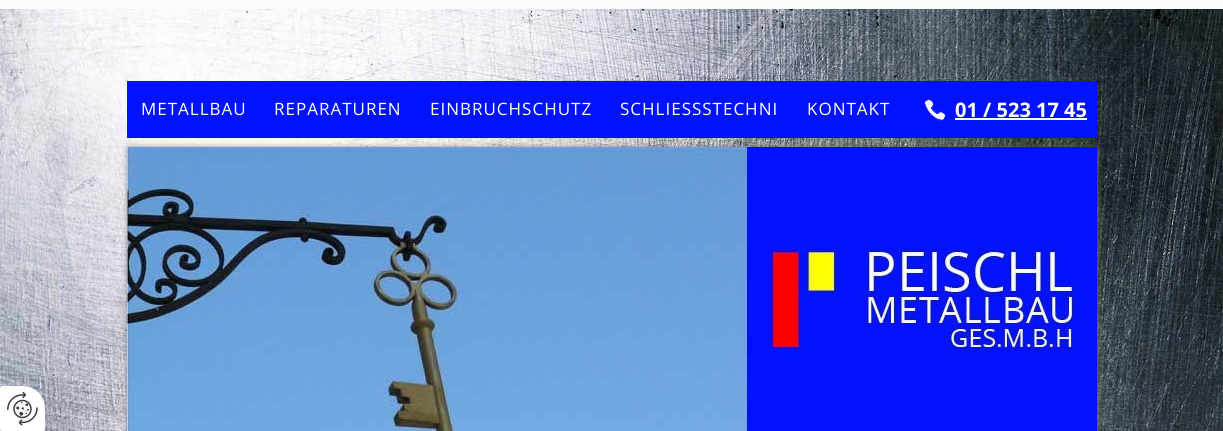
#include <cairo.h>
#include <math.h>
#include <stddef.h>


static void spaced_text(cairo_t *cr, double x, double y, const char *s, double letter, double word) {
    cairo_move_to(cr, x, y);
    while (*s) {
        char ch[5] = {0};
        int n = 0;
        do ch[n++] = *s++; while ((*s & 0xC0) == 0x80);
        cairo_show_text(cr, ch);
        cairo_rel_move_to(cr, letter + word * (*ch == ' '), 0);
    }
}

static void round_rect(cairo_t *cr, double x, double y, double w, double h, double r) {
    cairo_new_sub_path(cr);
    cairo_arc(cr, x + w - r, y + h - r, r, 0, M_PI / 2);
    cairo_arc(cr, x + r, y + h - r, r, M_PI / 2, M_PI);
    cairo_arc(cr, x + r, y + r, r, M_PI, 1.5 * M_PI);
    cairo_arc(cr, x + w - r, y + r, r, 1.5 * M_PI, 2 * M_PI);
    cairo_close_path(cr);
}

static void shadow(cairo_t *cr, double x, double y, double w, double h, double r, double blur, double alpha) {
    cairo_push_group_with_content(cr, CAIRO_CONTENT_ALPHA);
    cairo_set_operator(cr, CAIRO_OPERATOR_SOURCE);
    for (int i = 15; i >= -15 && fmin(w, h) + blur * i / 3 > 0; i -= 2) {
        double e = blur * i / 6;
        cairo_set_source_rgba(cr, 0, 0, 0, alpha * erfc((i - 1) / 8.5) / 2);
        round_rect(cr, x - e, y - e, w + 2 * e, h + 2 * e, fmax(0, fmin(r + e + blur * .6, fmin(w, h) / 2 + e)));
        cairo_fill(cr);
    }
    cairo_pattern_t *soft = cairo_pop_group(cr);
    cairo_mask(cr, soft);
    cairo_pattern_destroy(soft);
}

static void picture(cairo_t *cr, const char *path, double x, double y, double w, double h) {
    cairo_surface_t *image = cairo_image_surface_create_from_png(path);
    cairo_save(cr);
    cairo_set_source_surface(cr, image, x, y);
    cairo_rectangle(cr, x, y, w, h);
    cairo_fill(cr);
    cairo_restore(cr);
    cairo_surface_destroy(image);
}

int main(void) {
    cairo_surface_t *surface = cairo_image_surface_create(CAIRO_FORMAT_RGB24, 1223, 431);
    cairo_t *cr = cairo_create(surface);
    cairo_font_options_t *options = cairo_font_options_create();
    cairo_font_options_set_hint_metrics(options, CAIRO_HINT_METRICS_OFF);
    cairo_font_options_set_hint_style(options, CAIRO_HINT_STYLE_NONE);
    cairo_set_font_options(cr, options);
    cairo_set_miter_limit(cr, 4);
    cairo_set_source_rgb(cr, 0.984, 0.984, 0.984);
    cairo_paint(cr);
    picture(cr, "img1.png", 0, 9, 1223, 422);
    cairo_set_source_rgb(cr, 0.4, 0.4, 0.4);
    shadow(cr, 128, 148, 970, 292, 0, 3, 1);
    picture(cr, "img2.png", 127, 147, 970, 284);
    cairo_set_source_rgb(cr, 0.004, 0.071, 1);
    cairo_rectangle(cr, 127, 81, 970, 57);
    cairo_fill(cr);
    cairo_select_font_face(cr, "Open Sans", CAIRO_FONT_SLANT_NORMAL, CAIRO_FONT_WEIGHT_NORMAL);
    cairo_set_font_size(cr, 17);
    cairo_set_source_rgb(cr, 1, 1, 1);
    spaced_text(cr, 141, 115, "METALLBAU", 1, 0);
    spaced_text(cr, 274, 115, "REPARATUREN", 1, 0);
    spaced_text(cr, 430, 115, "EINBRUCHSCHUTZ", 1, 0);
    spaced_text(cr, 620, 115, "SCHLIESSSTECHNI", 1, 0);
    spaced_text(cr, 807, 115, "KONTAKT", 1, 0);
    picture(cr, "img3.png", 924, 99, 22, 22);
    cairo_select_font_face(cr, "Open Sans", CAIRO_FONT_SLANT_NORMAL, CAIRO_FONT_WEIGHT_BOLD);
    cairo_set_font_size(cr, 20);
    cairo_move_to(cr, 955, 117);
    cairo_show_text(cr, "01 / 523 17 45");
    cairo_rectangle(cr, 955, 118, 132, 2);
    cairo_fill(cr);
    cairo_set_source_rgb(cr, 0, 0, 0);
    shadow(cr, 0, 386, 45, 45, 22.5, 2.5, 0.1);
    cairo_set_source_rgb(cr, 1, 1, 1);
    cairo_new_path(cr);
    cairo_move_to(cr, 2, 386);
    cairo_line_to(cr, 22.5, 386);
    cairo_curve_to(cr, 35, 386, 45, 396, 45, 408.5);
    cairo_line_to(cr, 45, 429);
    cairo_curve_to(cr, 45, 430, 44, 431, 43, 431);
    cairo_line_to(cr, 2, 431);
    cairo_curve_to(cr, 1, 431, 0, 430, 0, 429);
    cairo_line_to(cr, 0, 388);
    cairo_curve_to(cr, 0, 387, 1, 386, 2, 386);
    cairo_close_path(cr);
    cairo_fill(cr);
    picture(cr, "img4.png", 7, 392, 31, 34);
    cairo_surface_write_to_png(surface, "page.png");
    cairo_font_options_destroy(options);
    cairo_destroy(cr);
    cairo_surface_destroy(surface);
    return 0;
}
